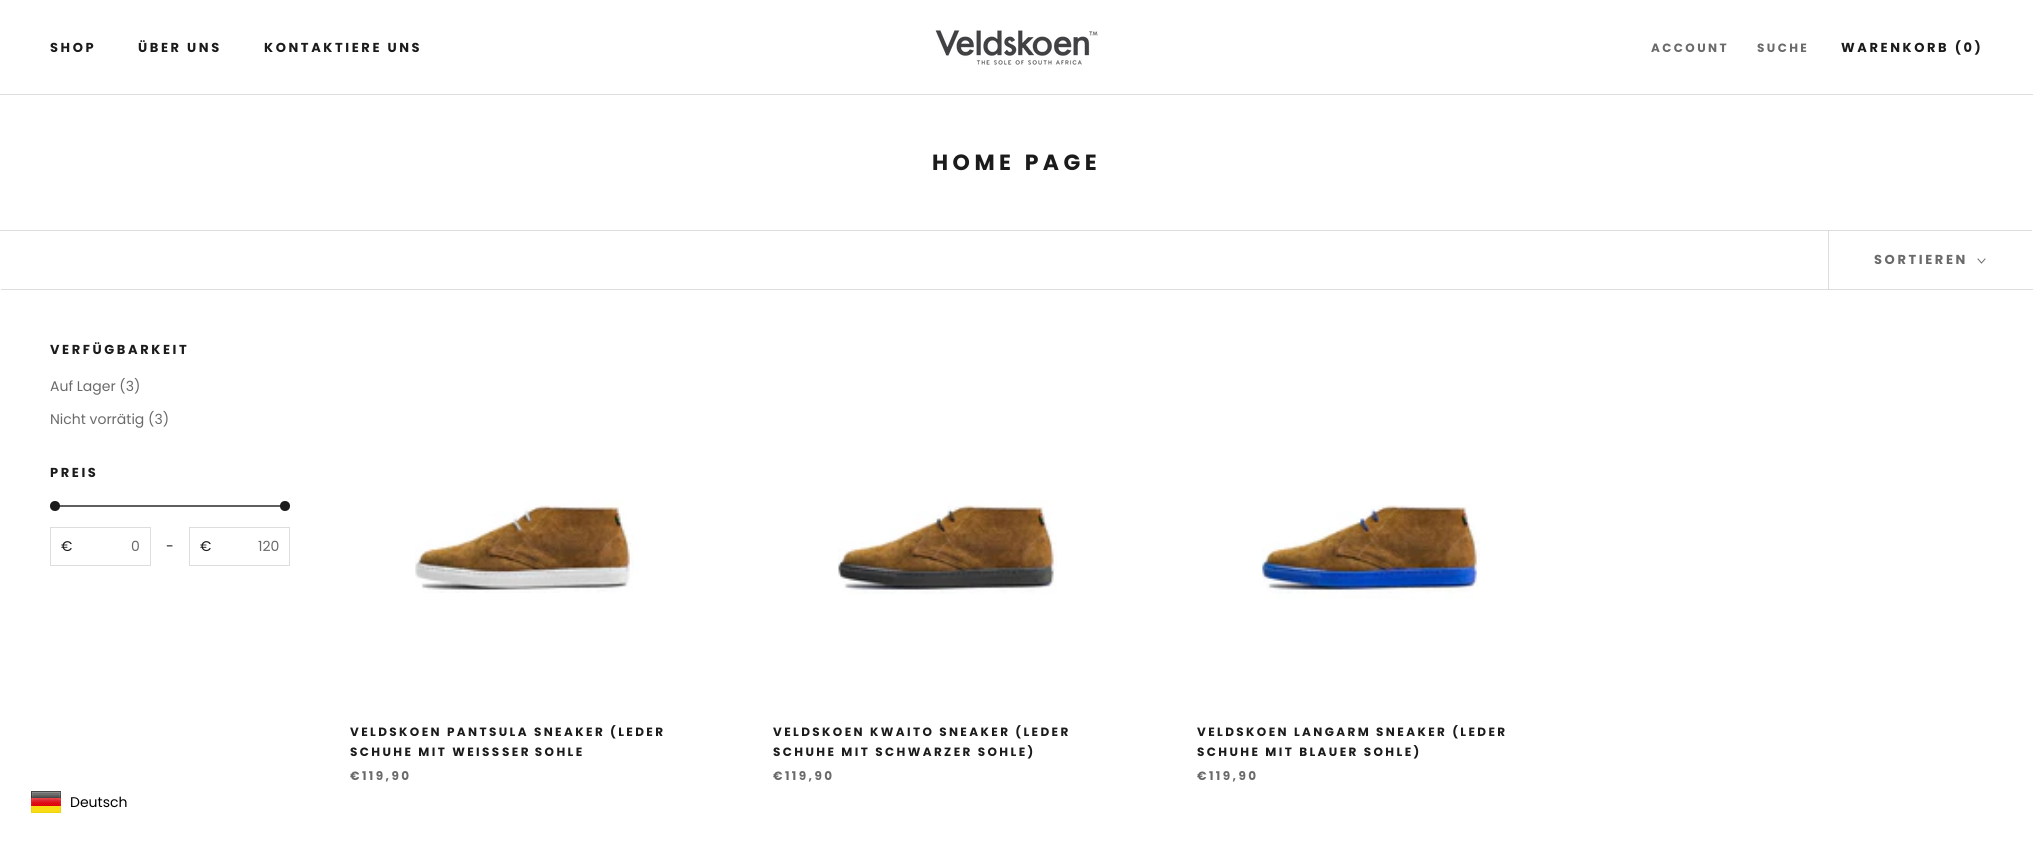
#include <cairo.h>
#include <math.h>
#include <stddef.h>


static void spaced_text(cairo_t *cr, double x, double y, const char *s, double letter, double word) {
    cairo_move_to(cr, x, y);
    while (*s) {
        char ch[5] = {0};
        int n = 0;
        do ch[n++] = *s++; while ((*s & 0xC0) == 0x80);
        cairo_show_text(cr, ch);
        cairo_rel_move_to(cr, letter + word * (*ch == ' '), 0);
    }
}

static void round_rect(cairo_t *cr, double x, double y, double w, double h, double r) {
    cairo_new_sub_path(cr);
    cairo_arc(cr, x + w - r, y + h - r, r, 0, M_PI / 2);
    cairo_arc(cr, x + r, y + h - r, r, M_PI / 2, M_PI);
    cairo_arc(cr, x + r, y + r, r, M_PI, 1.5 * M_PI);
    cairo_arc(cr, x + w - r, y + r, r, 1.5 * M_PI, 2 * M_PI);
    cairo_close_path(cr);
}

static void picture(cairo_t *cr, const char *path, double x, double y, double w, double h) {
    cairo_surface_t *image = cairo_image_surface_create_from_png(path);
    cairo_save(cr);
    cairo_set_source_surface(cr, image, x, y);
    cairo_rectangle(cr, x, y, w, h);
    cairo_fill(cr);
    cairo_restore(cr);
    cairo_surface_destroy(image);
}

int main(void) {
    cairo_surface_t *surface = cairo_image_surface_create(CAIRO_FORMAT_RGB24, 2033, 845);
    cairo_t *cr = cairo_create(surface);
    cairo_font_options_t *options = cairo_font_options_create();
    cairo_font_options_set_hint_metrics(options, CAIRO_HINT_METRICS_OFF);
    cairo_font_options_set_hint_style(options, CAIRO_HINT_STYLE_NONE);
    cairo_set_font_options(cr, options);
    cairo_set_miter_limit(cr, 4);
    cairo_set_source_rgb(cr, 1, 1, 1);
    cairo_paint(cr);
    cairo_set_source_rgb(cr, 0.867, 0.867, 0.867);
    cairo_rectangle(cr, 0, 94, 2033, 1);
    cairo_fill(cr);
    cairo_select_font_face(cr, "Poppins", CAIRO_FONT_SLANT_NORMAL, CAIRO_FONT_WEIGHT_BOLD);
    cairo_set_font_size(cr, 13);
    cairo_set_source_rgb(cr, 0.11, 0.106, 0.106);
    spaced_text(cr, 50, 52, "SHOP", 2.6, 0);
    spaced_text(cr, 138, 52, "ÜBER UNS", 2.6, 0);
    spaced_text(cr, 264, 52, "KONTAKTIERE UNS", 2.6, 0);
    picture(cr, "img1.png", 935, 30, 163, 35);
    cairo_set_font_size(cr, 12);
    cairo_set_source_rgb(cr, 0.416, 0.416, 0.416);
    spaced_text(cr, 1651, 52, "ACCOUNT", 2.4, 0);
    spaced_text(cr, 1757, 52, "SUCHE", 2.4, 0);
    cairo_set_font_size(cr, 13);
    cairo_set_source_rgb(cr, 0.11, 0.106, 0.106);
    spaced_text(cr, 1841, 52, "WARENKORB (0)", 2.6, 0);
    cairo_set_font_size(cr, 22);
    spaced_text(cr, 932, 170, "HOME PAGE", 4.5, 0);
    cairo_set_source_rgb(cr, 0.867, 0.867, 0.867);
    cairo_new_path(cr);
    cairo_move_to(cr, -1, 230);
    cairo_line_to(cr, -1, 288);
    cairo_line_to(cr, 0, 288);
    cairo_line_to(cr, 0, 231);
    cairo_line_to(cr, 2032, 231);
    cairo_line_to(cr, 2032, 230);
    cairo_close_path(cr);
    cairo_fill(cr);
    cairo_new_path(cr);
    cairo_move_to(cr, 1, 289);
    cairo_line_to(cr, 1, 290);
    cairo_line_to(cr, 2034, 290);
    cairo_line_to(cr, 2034, 232);
    cairo_line_to(cr, 2033, 232);
    cairo_line_to(cr, 2033, 289);
    cairo_close_path(cr);
    cairo_fill(cr);
    cairo_rectangle(cr, 1828, 231, 1, 58);
    cairo_fill(cr);
    cairo_set_font_size(cr, 13);
    cairo_set_source_rgb(cr, 0.416, 0.416, 0.416);
    spaced_text(cr, 1874, 264, "SORTIEREN", 2.6, 0);
    cairo_new_path(cr);
    cairo_move_to(cr, 1985, 259);
    cairo_line_to(cr, 1981.5, 263);
    cairo_line_to(cr, 1978, 259);
    cairo_set_line_width(cr, 1);
    cairo_set_line_cap(cr, CAIRO_LINE_CAP_SQUARE);
    cairo_stroke(cr);
    cairo_set_source_rgb(cr, 0.11, 0.106, 0.106);
    spaced_text(cr, 50, 354, "VERFÜGBARKEIT", 2.6, 0);
    cairo_select_font_face(cr, "Poppins", CAIRO_FONT_SLANT_NORMAL, CAIRO_FONT_WEIGHT_NORMAL);
    cairo_set_font_size(cr, 14);
    cairo_set_source_rgb(cr, 0.416, 0.416, 0.416);
    cairo_move_to(cr, 50, 391);
    cairo_show_text(cr, "Auf Lager (3)");
    cairo_move_to(cr, 50, 424);
    cairo_show_text(cr, "Nicht vorrätig (3)");
    cairo_select_font_face(cr, "Poppins", CAIRO_FONT_SLANT_NORMAL, CAIRO_FONT_WEIGHT_BOLD);
    cairo_set_font_size(cr, 13);
    cairo_set_source_rgb(cr, 0.11, 0.106, 0.106);
    spaced_text(cr, 50, 477, "PREIS", 2.6, 0);
    cairo_set_source_rgb(cr, 0.376, 0.373, 0.373);
    round_rect(cr, 50, 505, 240, 2, 1);
    cairo_fill(cr);
    cairo_set_source_rgb(cr, 0.11, 0.106, 0.106);
    cairo_arc(cr, 55, 506, 5, 0, 2 * M_PI);
    cairo_fill(cr);
    cairo_arc(cr, 285, 506, 5, 0, 2 * M_PI);
    cairo_fill(cr);
    cairo_rectangle(cr, 50.5, 527.5, 100, 38);
    cairo_set_source_rgb(cr, 0.867, 0.867, 0.867);
    cairo_set_line_cap(cr, CAIRO_LINE_CAP_BUTT);
    cairo_stroke(cr);
    cairo_select_font_face(cr, "Poppins", CAIRO_FONT_SLANT_NORMAL, CAIRO_FONT_WEIGHT_NORMAL);
    cairo_set_font_size(cr, 14);
    cairo_set_source_rgb(cr, 0.11, 0.106, 0.106);
    cairo_move_to(cr, 61, 551);
    cairo_show_text(cr, "€");
    cairo_set_source_rgb(cr, 0.416, 0.416, 0.416);
    cairo_move_to(cr, 131, 551);
    cairo_show_text(cr, "0");
    cairo_set_source_rgb(cr, 0.11, 0.106, 0.106);
    cairo_move_to(cr, 166, 551);
    cairo_show_text(cr, "-");
    cairo_rectangle(cr, 189.5, 527.5, 100, 38);
    cairo_set_source_rgb(cr, 0.867, 0.867, 0.867);
    cairo_stroke(cr);
    cairo_set_source_rgb(cr, 0.11, 0.106, 0.106);
    cairo_move_to(cr, 200, 551);
    cairo_show_text(cr, "€");
    cairo_set_source_rgb(cr, 0.416, 0.416, 0.416);
    cairo_move_to(cr, 258, 551);
    cairo_show_text(cr, "120");
    picture(cr, "img2.png", 415, 500, 224, 93);
    cairo_select_font_face(cr, "Poppins", CAIRO_FONT_SLANT_NORMAL, CAIRO_FONT_WEIGHT_BOLD);
    cairo_set_font_size(cr, 12);
    cairo_set_source_rgb(cr, 0.11, 0.106, 0.106);
    spaced_text(cr, 350, 736, "VELDSKOEN PANTSULA SNEAKER (LEDER", 2.4, 0);
    spaced_text(cr, 350, 756, "SCHUHE MIT WEISS", 2.4, 0);
    spaced_text(cr, 502, 756, "SER SOHLE", 2.4, -1);
    cairo_set_source_rgb(cr, 0.416, 0.416, 0.416);
    spaced_text(cr, 350, 780, "€119,90", 2.4, 0);
    picture(cr, "img3.png", 838, 500, 219, 95);
    cairo_set_source_rgb(cr, 0.11, 0.106, 0.106);
    spaced_text(cr, 773, 736, "VELDSKOEN KWAITO SNEAKER (LEDER", 2.4, 0);
    spaced_text(cr, 773, 756, "SCHUHE MIT SCHWARZER SOHLE)", 2.4, 0);
    cairo_set_source_rgb(cr, 0.416, 0.416, 0.416);
    spaced_text(cr, 773, 780, "€119,90", 2.4, 0);
    picture(cr, "img4.png", 1260, 505, 220, 94);
    cairo_set_source_rgb(cr, 0.11, 0.106, 0.106);
    spaced_text(cr, 1197, 736, "VELDSKOEN LANGARM SNEAKER (LEDER", 2.4, 0);
    spaced_text(cr, 1197, 756, "SCHUHE MIT BLAUER SOHLE)", 2.4, 0);
    cairo_set_source_rgb(cr, 0.416, 0.416, 0.416);
    spaced_text(cr, 1197, 780, "€119,90", 2.4, 0);
    picture(cr, "img5.png", 31, 791, 30, 22);
    cairo_select_font_face(cr, "Poppins", CAIRO_FONT_SLANT_NORMAL, CAIRO_FONT_WEIGHT_NORMAL);
    cairo_set_font_size(cr, 14);
    cairo_set_source_rgb(cr, 0, 0, 0);
    cairo_move_to(cr, 70, 807);
    cairo_show_text(cr, "Deutsch");
    cairo_surface_write_to_png(surface, "page.png");
    cairo_font_options_destroy(options);
    cairo_destroy(cr);
    cairo_surface_destroy(surface);
    return 0;
}
